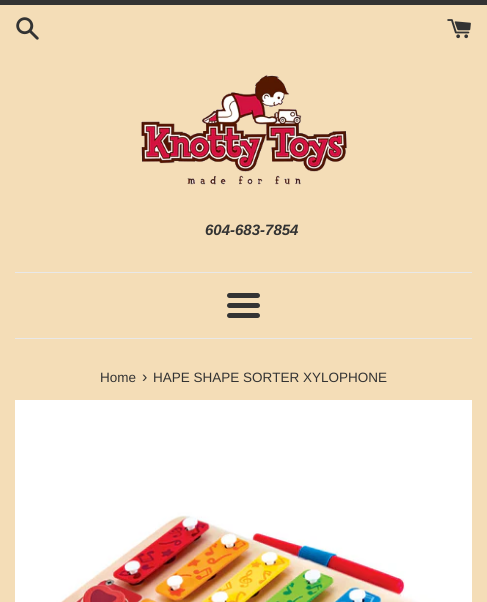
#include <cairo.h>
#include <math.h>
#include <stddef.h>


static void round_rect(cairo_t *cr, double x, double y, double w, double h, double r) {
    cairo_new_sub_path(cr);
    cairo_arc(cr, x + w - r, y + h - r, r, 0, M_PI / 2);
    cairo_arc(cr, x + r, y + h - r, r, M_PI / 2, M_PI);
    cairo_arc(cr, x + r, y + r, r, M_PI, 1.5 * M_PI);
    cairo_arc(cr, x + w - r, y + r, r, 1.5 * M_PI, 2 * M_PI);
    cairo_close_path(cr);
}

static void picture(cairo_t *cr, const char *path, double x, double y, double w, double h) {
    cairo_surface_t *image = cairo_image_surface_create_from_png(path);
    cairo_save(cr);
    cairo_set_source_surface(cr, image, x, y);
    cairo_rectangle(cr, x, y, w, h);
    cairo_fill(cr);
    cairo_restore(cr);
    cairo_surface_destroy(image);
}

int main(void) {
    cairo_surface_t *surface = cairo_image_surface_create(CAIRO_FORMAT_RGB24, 487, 602);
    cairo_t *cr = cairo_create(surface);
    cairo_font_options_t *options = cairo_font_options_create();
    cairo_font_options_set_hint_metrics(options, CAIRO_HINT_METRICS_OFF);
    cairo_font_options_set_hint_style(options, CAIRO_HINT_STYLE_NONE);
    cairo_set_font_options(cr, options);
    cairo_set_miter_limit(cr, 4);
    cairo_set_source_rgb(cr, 0.957, 0.867, 0.718);
    cairo_paint(cr);
    cairo_set_source_rgb(cr, 0.2, 0.2, 0.2);
    cairo_rectangle(cr, 0, 0, 487, 5);
    cairo_fill(cr);
    picture(cr, "img1.png", 16, 17, 23, 23);
    picture(cr, "img2.png", 447, 19, 24, 20);
    picture(cr, "img3.png", 141, 74, 206, 111);
    cairo_select_font_face(cr, "Liberation Sans", CAIRO_FONT_SLANT_ITALIC, CAIRO_FONT_WEIGHT_BOLD);
    cairo_set_font_size(cr, 15);
    cairo_move_to(cr, 205, 235);
    cairo_show_text(cr, "604-683-7854");
    cairo_set_source_rgb(cr, 0.91, 0.91, 0.91);
    cairo_rectangle(cr, 15, 272, 457, 1);
    cairo_fill(cr);
    cairo_set_source_rgb(cr, 0.2, 0.2, 0.2);
    round_rect(cr, 227, 293, 33, 5, 2.5);
    cairo_fill(cr);
    round_rect(cr, 227, 303, 33, 5, 2.5);
    cairo_fill(cr);
    round_rect(cr, 227, 313, 33, 5, 2.5);
    cairo_fill(cr);
    cairo_set_source_rgb(cr, 0.91, 0.91, 0.91);
    cairo_rectangle(cr, 15, 338, 457, 1);
    cairo_fill(cr);
    cairo_select_font_face(cr, "Liberation Sans", CAIRO_FONT_SLANT_NORMAL, CAIRO_FONT_WEIGHT_NORMAL);
    cairo_set_font_size(cr, 13.5);
    cairo_set_source_rgb(cr, 0.2, 0.2, 0.2);
    cairo_move_to(cr, 100, 382);
    cairo_show_text(cr, "Home");
    cairo_set_font_size(cr, 16);
    cairo_move_to(cr, 142, 382);
    cairo_show_text(cr, "›");
    cairo_set_font_size(cr, 13.5);
    cairo_move_to(cr, 153, 382);
    cairo_show_text(cr, "HAPE SHAPE SORTER XYLOPHONE");
    picture(cr, "img4.png", 15, 400, 457, 202);
    cairo_surface_write_to_png(surface, "page.png");
    cairo_font_options_destroy(options);
    cairo_destroy(cr);
    cairo_surface_destroy(surface);
    return 0;
}
